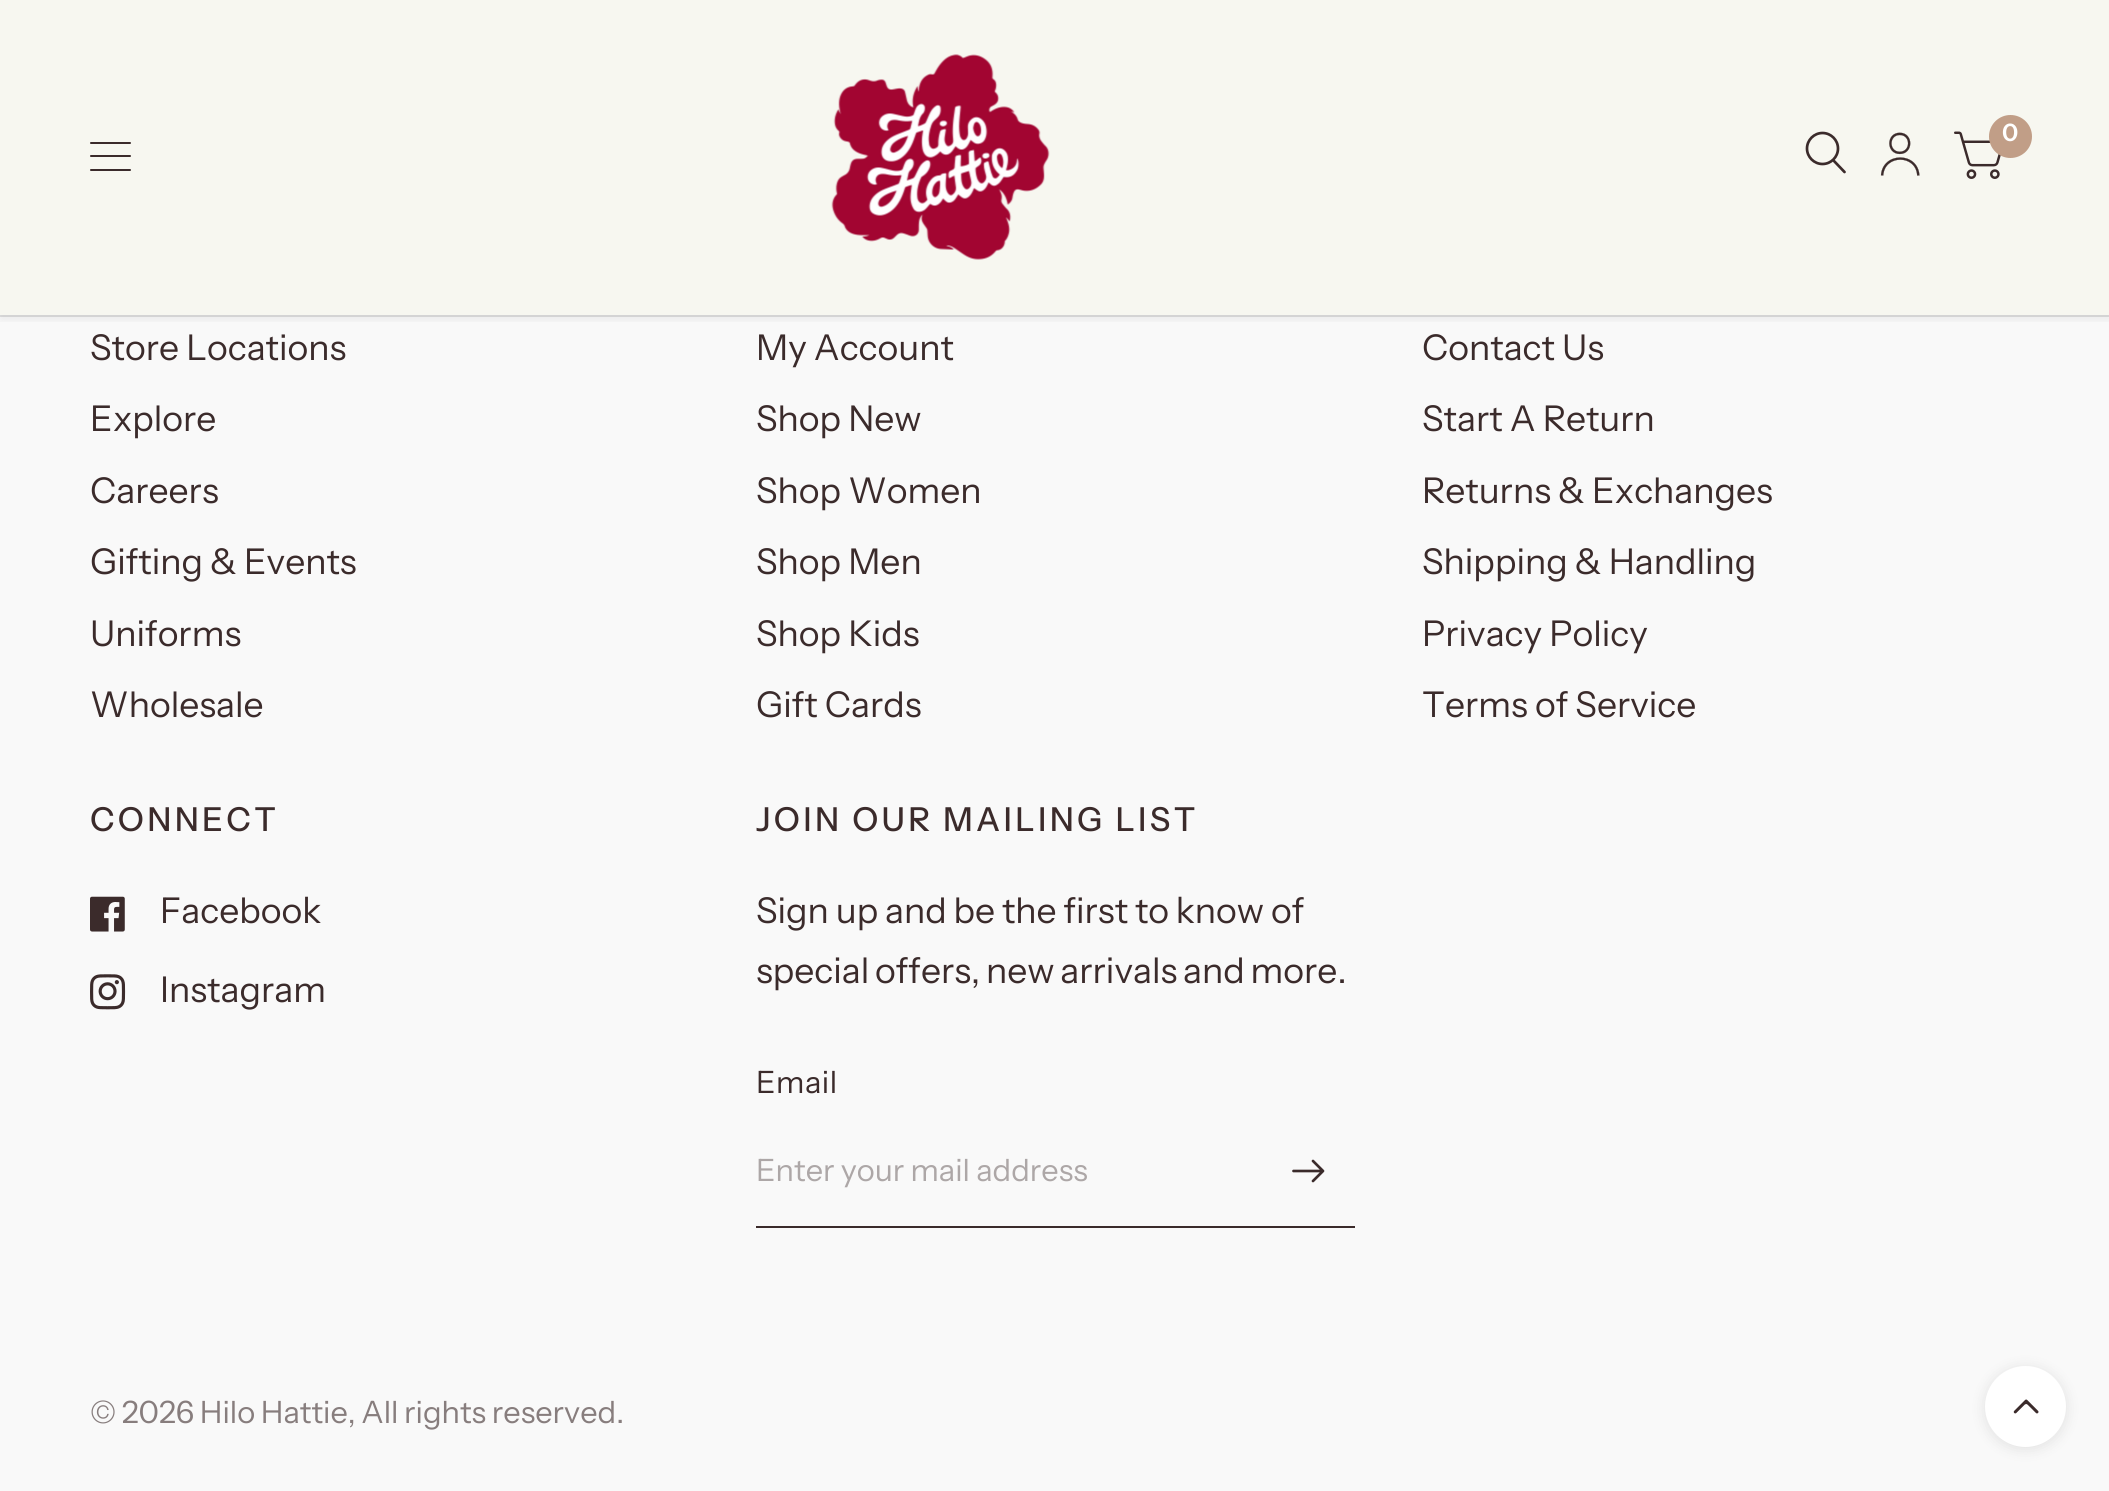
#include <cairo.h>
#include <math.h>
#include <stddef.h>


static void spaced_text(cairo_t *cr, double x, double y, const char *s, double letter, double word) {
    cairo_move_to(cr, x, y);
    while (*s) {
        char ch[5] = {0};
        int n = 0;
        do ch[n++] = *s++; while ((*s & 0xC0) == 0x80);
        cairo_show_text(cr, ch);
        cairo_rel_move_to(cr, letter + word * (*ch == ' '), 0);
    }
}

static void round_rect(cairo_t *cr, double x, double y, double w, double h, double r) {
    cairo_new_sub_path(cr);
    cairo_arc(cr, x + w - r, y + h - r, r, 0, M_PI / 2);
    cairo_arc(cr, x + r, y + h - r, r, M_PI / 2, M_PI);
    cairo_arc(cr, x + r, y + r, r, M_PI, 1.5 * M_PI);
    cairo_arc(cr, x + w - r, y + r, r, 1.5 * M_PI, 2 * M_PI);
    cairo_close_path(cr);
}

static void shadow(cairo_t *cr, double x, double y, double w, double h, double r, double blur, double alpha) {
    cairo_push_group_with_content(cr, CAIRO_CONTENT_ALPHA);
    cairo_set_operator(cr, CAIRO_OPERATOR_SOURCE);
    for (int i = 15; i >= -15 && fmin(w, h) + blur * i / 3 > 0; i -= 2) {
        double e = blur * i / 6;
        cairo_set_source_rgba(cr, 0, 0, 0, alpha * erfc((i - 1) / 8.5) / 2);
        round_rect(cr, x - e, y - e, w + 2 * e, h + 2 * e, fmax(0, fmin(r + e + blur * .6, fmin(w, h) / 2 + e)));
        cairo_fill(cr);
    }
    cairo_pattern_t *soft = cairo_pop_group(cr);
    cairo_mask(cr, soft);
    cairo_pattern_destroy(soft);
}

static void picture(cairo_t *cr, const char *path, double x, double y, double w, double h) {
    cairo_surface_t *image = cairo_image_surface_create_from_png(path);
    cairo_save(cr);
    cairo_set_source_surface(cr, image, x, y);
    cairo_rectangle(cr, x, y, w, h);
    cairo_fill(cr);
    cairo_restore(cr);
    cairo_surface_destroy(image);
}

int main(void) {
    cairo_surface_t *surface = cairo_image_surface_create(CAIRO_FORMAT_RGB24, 2109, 1491);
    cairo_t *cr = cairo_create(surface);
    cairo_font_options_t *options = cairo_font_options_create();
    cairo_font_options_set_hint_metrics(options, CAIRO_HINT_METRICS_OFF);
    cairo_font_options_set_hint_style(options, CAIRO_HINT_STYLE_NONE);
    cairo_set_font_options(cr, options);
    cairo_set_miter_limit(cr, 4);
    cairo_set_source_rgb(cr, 0.976, 0.976, 0.976);
    cairo_paint(cr);
    cairo_set_source_rgb(cr, 0.965, 0.965, 0.941);
    cairo_rectangle(cr, 0, 0, 2109, 315);
    cairo_fill(cr);
    cairo_set_source_rgb(cr, 0.871, 0.871, 0.871);
    cairo_rectangle(cr, 0, 315, 2109, 2);
    cairo_fill(cr);
    cairo_save(cr);
    cairo_rectangle(cr, 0, 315, 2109, 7);
    cairo_clip(cr);
    cairo_set_source_rgb(cr, 0, 0, 0);
    shadow(cr, 0, 5, 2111, 315, 0, 5.5, 0.06);
    cairo_restore(cr);
    picture(cr, "img1.png", 831, 54, 219, 206);
    cairo_new_path(cr);
    cairo_move_to(cr, 1834, 161);
    cairo_line_to(cr, 1844.5, 172);
    cairo_move_to(cr, 1838, 148.5);
    cairo_curve_to(cr, 1838, 157, 1831, 164, 1822.5, 164);
    cairo_curve_to(cr, 1814, 164, 1807, 157, 1807, 148.5);
    cairo_curve_to(cr, 1807, 140, 1814, 133, 1822.5, 133);
    cairo_curve_to(cr, 1831, 133, 1838, 140, 1838, 148.5);
    cairo_close_path(cr);
    cairo_set_source_rgb(cr, 0.231, 0.169, 0.169);
    cairo_set_line_width(cr, 2.7);
    cairo_set_line_cap(cr, CAIRO_LINE_CAP_ROUND);
    cairo_set_line_join(cr, CAIRO_LINE_JOIN_ROUND);
    cairo_stroke(cr);
    picture(cr, "img2.png", 1880, 132, 40, 44);
    picture(cr, "img3.png", 1954, 131, 47, 48);
    cairo_set_source_rgb(cr, 0.757, 0.62, 0.529);
    cairo_arc(cr, 2010.5, 136.5, 21.5, 0, 2 * M_PI);
    cairo_fill(cr);
    cairo_select_font_face(cr, "Instrument Sans SemiBold", CAIRO_FONT_SLANT_NORMAL, CAIRO_FONT_WEIGHT_NORMAL);
    cairo_set_font_size(cr, 24);
    cairo_set_source_rgb(cr, 1, 1, 1);
    cairo_move_to(cr, 2002, 141);
    cairo_show_text(cr, "0");
    cairo_set_source_rgb(cr, 0.231, 0.169, 0.169);
    round_rect(cr, 90, 142, 41, 2, 1);
    cairo_fill(cr);
    round_rect(cr, 90, 155, 41, 2, 1);
    cairo_fill(cr);
    round_rect(cr, 90, 169, 41, 2, 1);
    cairo_fill(cr);
    cairo_select_font_face(cr, "Instrument Sans", CAIRO_FONT_SLANT_NORMAL, CAIRO_FONT_WEIGHT_NORMAL);
    cairo_set_font_size(cr, 35.5);
    cairo_move_to(cr, 90, 360);
    cairo_show_text(cr, "Store Locations");
    cairo_move_to(cr, 90, 431);
    cairo_show_text(cr, "Explore");
    cairo_move_to(cr, 90, 503);
    cairo_show_text(cr, "Careers");
    cairo_move_to(cr, 90, 574);
    cairo_show_text(cr, "Gifting & Events");
    cairo_move_to(cr, 90, 646);
    cairo_show_text(cr, "Uniforms");
    cairo_move_to(cr, 90, 717);
    cairo_show_text(cr, "Wholesale");
    cairo_move_to(cr, 756, 360);
    cairo_show_text(cr, "My Account");
    cairo_move_to(cr, 756, 431);
    cairo_show_text(cr, "Shop New");
    cairo_move_to(cr, 756, 503);
    cairo_show_text(cr, "Shop Women");
    cairo_move_to(cr, 756, 574);
    cairo_show_text(cr, "Shop Men");
    cairo_move_to(cr, 756, 646);
    cairo_show_text(cr, "Shop Kids");
    cairo_move_to(cr, 756, 717);
    cairo_show_text(cr, "Gift Cards");
    cairo_move_to(cr, 1422, 360);
    cairo_show_text(cr, "Contact Us");
    cairo_move_to(cr, 1422, 431);
    cairo_show_text(cr, "Start A Return");
    cairo_move_to(cr, 1422, 503);
    cairo_show_text(cr, "Returns & Exchanges");
    cairo_move_to(cr, 1422, 574);
    cairo_show_text(cr, "Shipping & Handling");
    cairo_move_to(cr, 1422, 646);
    cairo_show_text(cr, "Privacy Policy");
    cairo_move_to(cr, 1422, 717);
    cairo_show_text(cr, "Terms of Service");
    cairo_select_font_face(cr, "Instrument Sans Medium", CAIRO_FONT_SLANT_NORMAL, CAIRO_FONT_WEIGHT_NORMAL);
    cairo_set_font_size(cr, 33);
    spaced_text(cr, 90, 831, "CONNECT", 3.3, 0);
    picture(cr, "img4.png", 90, 896, 35, 36);
    cairo_select_font_face(cr, "Instrument Sans", CAIRO_FONT_SLANT_NORMAL, CAIRO_FONT_WEIGHT_NORMAL);
    cairo_set_font_size(cr, 35.5);
    cairo_move_to(cr, 160, 923);
    cairo_show_text(cr, "Facebook");
    picture(cr, "img5.png", 90, 974, 36, 36);
    cairo_move_to(cr, 160, 1002);
    cairo_show_text(cr, "Instagram");
    cairo_select_font_face(cr, "Instrument Sans Medium", CAIRO_FONT_SLANT_NORMAL, CAIRO_FONT_WEIGHT_NORMAL);
    cairo_set_font_size(cr, 33);
    spaced_text(cr, 756, 831, "JOIN OUR MAILING LIST", 3.3, 0);
    cairo_select_font_face(cr, "Instrument Sans", CAIRO_FONT_SLANT_NORMAL, CAIRO_FONT_WEIGHT_NORMAL);
    cairo_set_font_size(cr, 35.5);
    spaced_text(cr, 756, 923, "Sign up and be the first to know of", 0, -0.25);
    spaced_text(cr, 756, 983, "special offers, new arrivals and more.", 0, -1.25);
    cairo_set_font_size(cr, 30.75);
    spaced_text(cr, 756, 1093, "Email", 0.5, 0);
    cairo_rectangle(cr, 756, 1226, 599, 2);
    cairo_fill(cr);
    cairo_set_source_rgb(cr, 0.678, 0.655, 0.655);
    cairo_move_to(cr, 756, 1181);
    cairo_show_text(cr, "Enter your mail address");
    cairo_new_path(cr);
    cairo_move_to(cr, 1293.5, 1171);
    cairo_line_to(cr, 1320.5, 1171);
    cairo_move_to(cr, 1313, 1161);
    cairo_line_to(cr, 1323, 1171);
    cairo_line_to(cr, 1313, 1181);
    cairo_set_source_rgb(cr, 0.231, 0.169, 0.169);
    cairo_stroke(cr);
    cairo_set_source_rgb(cr, 0.529, 0.49, 0.49);
    spaced_text(cr, 90, 1423, "© 2026 Hilo Hattie, All rights reserved.", 0, -0.5);
    cairo_set_source_rgb(cr, 0, 0, 0);
    shadow(cr, 1985, 1368, 81, 81, 40.5, 7, 0.1);
    cairo_set_source_rgb(cr, 1, 1, 1);
    cairo_arc(cr, 2025.5, 1406.5, 40.5, 0, 2 * M_PI);
    cairo_fill(cr);
    picture(cr, "img6.png", 2013, 1399, 26, 15);
    cairo_surface_write_to_png(surface, "page.png");
    cairo_font_options_destroy(options);
    cairo_destroy(cr);
    cairo_surface_destroy(surface);
    return 0;
}
